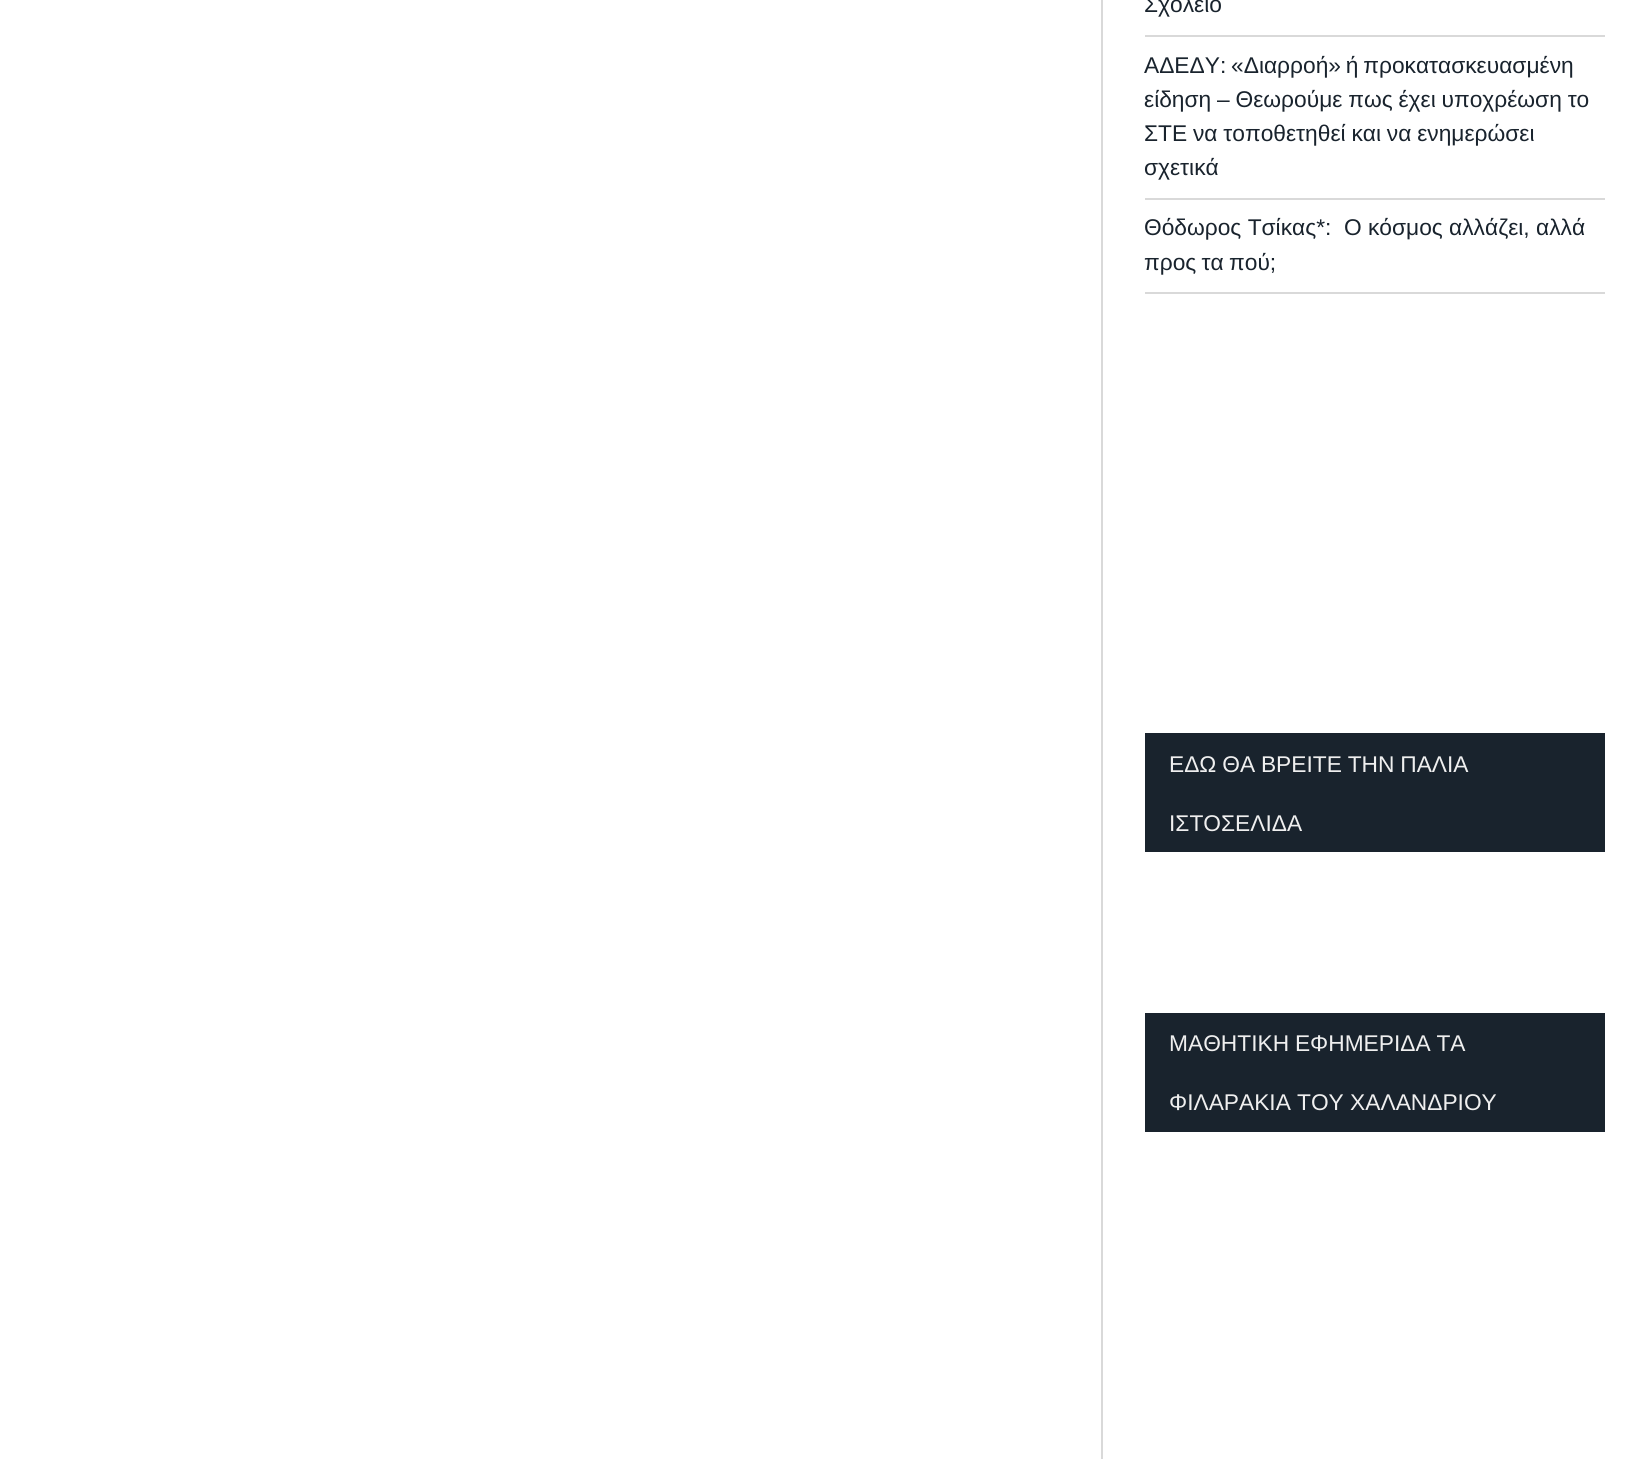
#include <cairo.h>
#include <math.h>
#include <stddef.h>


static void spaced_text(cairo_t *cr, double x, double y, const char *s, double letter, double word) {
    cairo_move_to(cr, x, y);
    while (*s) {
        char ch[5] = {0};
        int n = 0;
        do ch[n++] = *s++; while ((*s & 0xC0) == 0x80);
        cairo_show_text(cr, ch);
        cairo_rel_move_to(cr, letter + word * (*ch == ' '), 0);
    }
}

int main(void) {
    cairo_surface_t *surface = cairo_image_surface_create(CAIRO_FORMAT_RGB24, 1647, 1459);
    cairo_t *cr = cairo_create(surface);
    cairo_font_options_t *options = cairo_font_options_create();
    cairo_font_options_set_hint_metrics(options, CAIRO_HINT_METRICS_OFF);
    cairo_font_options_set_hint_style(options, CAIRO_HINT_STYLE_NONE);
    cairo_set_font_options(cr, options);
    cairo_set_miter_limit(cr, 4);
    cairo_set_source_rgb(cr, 1, 1, 1);
    cairo_paint(cr);
    cairo_set_source_rgb(cr, 0.851, 0.851, 0.851);
    cairo_rectangle(cr, 1101, 0, 2, 1459);
    cairo_fill(cr);
    cairo_rectangle(cr, 1145, 35, 460, 2);
    cairo_fill(cr);
    cairo_select_font_face(cr, "Liberation Sans", CAIRO_FONT_SLANT_NORMAL, CAIRO_FONT_WEIGHT_NORMAL);
    cairo_set_font_size(cr, 22.75);
    cairo_set_source_rgb(cr, 0.098, 0.137, 0.176);
    cairo_move_to(cr, 1144, 12);
    cairo_show_text(cr, "Σχολείο");
    cairo_set_source_rgb(cr, 0.851, 0.851, 0.851);
    cairo_rectangle(cr, 1145, 198, 460, 2);
    cairo_fill(cr);
    cairo_set_source_rgb(cr, 0.098, 0.137, 0.176);
    spaced_text(cr, 1144, 73, "ΑΔΕΔΥ: «Διαρροή» ή προκατασκευασμένη", 0, -1.5);
    spaced_text(cr, 1144, 107, "είδηση – Θεωρούμε πως έχει υποχρέωση το", 0, -0.5);
    spaced_text(cr, 1144, 141, "ΣΤΕ να τοποθετηθεί και να ενημερώσει", 0, -0.5);
    cairo_move_to(cr, 1144, 175);
    cairo_show_text(cr, "σχετικά");
    cairo_set_source_rgb(cr, 0.851, 0.851, 0.851);
    cairo_rectangle(cr, 1145, 292, 460, 2);
    cairo_fill(cr);
    cairo_set_source_rgb(cr, 0.098, 0.137, 0.176);
    cairo_move_to(cr, 1144, 235);
    cairo_show_text(cr, "Θόδωρος Τσίκας*:  Ο κόσμος αλλάζει, αλλά");
    spaced_text(cr, 1144, 270, "προς τα πού;", 0, -1);
    cairo_rectangle(cr, 1145, 733, 460, 119);
    cairo_fill(cr);
    cairo_set_source_rgb(cr, 0.937, 0.937, 0.937);
    spaced_text(cr, 1169, 772, "ΕΔΩ ΘΑ ΒΡΕΙΤΕ ΤΗΝ ΠΑΛΙΑ", 0, -0.5);
    cairo_move_to(cr, 1169, 831);
    cairo_show_text(cr, "ΙΣΤΟΣΕΛΙΔΑ");
    cairo_set_source_rgb(cr, 0.098, 0.137, 0.176);
    cairo_rectangle(cr, 1145, 1013, 460, 119);
    cairo_fill(cr);
    cairo_set_source_rgb(cr, 0.937, 0.937, 0.937);
    spaced_text(cr, 1169, 1051, "ΜΑΘΗΤΙΚΗ ΕΦΗΜΕΡΙΔΑ ΤΑ", 0, -0.5);
    cairo_move_to(cr, 1169, 1110);
    cairo_show_text(cr, "ΦΙΛΑΡΑΚΙΑ");
    cairo_move_to(cr, 1297, 1110);
    cairo_show_text(cr, "ΤΟΥ ΧΑΛΑΝΔΡΙΟΥ");
    cairo_surface_write_to_png(surface, "page.png");
    cairo_font_options_destroy(options);
    cairo_destroy(cr);
    cairo_surface_destroy(surface);
    return 0;
}
